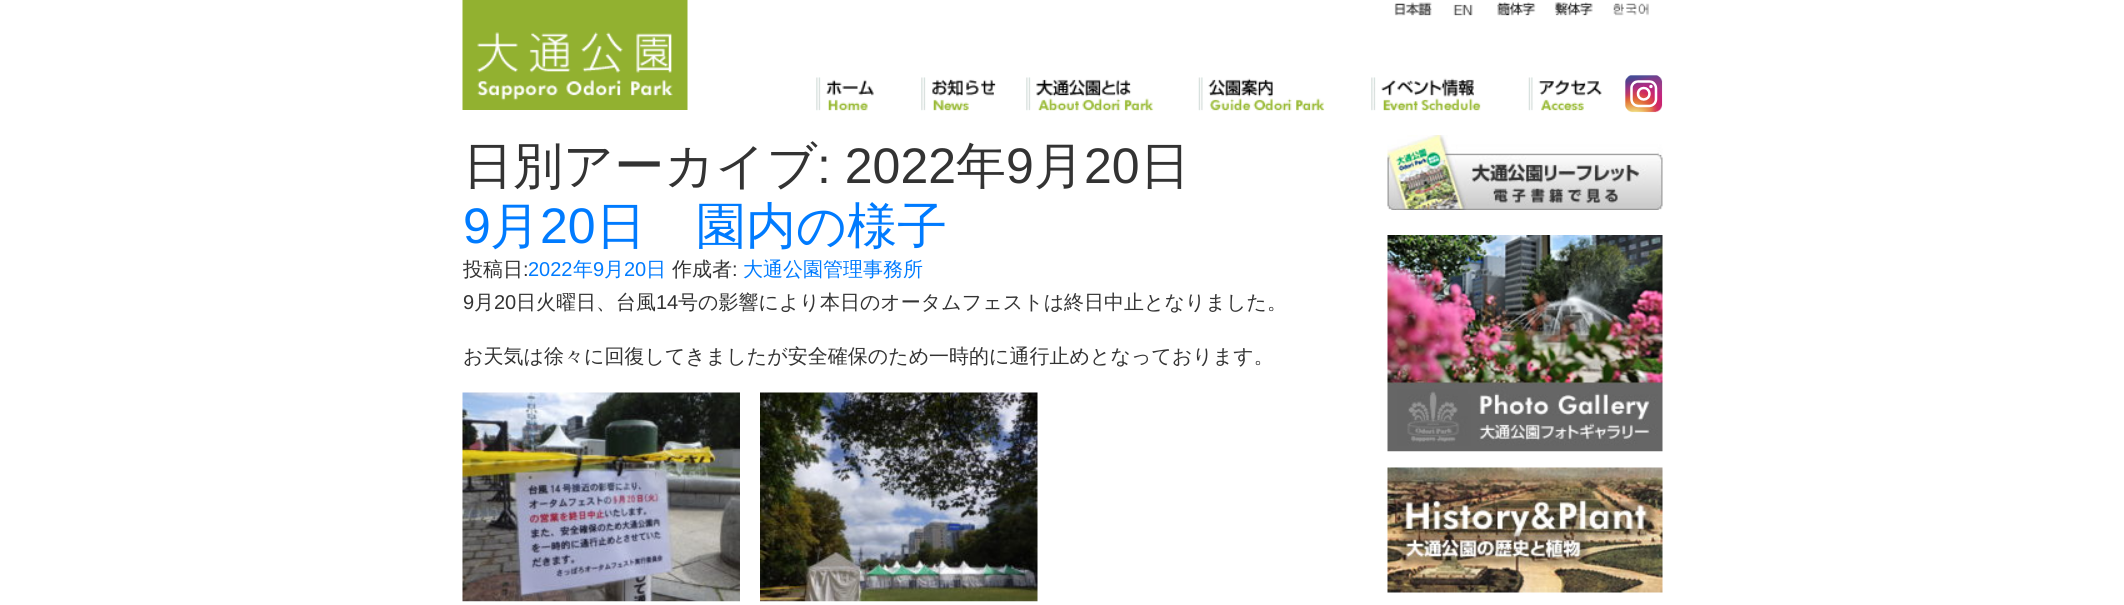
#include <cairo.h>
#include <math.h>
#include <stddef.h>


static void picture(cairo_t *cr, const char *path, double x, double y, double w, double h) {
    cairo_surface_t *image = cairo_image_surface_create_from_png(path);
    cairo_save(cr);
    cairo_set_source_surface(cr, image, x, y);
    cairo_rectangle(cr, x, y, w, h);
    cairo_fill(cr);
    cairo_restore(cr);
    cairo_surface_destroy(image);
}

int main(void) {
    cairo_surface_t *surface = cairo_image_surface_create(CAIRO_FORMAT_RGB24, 2124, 605);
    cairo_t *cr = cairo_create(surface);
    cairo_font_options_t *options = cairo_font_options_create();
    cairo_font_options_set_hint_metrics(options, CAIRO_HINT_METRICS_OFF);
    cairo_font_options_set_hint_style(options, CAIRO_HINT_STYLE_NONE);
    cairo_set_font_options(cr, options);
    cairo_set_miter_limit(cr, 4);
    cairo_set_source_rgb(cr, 1, 1, 1);
    cairo_paint(cr);
    picture(cr, "img1.png", 462, 0, 226, 110);
    picture(cr, "img2.png", 1394, 2, 38, 14);
    picture(cr, "img3.png", 1453, 4, 20, 12);
    picture(cr, "img4.png", 1497, 2, 39, 14);
    picture(cr, "img5.png", 1554, 2, 39, 14);
    picture(cr, "img6.png", 1613, 3, 36, 13);
    picture(cr, "img7.png", 816, 77, 58, 34);
    picture(cr, "img8.png", 921, 77, 75, 34);
    picture(cr, "img9.png", 1026, 77, 128, 34);
    picture(cr, "img10.png", 1198, 77, 127, 34);
    picture(cr, "img11.png", 1371, 77, 110, 34);
    picture(cr, "img12.png", 1528, 77, 74, 34);
    picture(cr, "img13.png", 1625, 75, 38, 38);
    cairo_select_font_face(cr, "WenQuanYi Zen Hei Medium", CAIRO_FONT_SLANT_NORMAL, CAIRO_FONT_WEIGHT_NORMAL);
    cairo_set_font_size(cr, 50);
    cairo_set_source_rgb(cr, 0.2, 0.2, 0.2);
    cairo_move_to(cr, 463, 183);
    cairo_show_text(cr, "日別アーカイブ");
    cairo_select_font_face(cr, "Liberation Sans", CAIRO_FONT_SLANT_NORMAL, CAIRO_FONT_WEIGHT_NORMAL);
    cairo_move_to(cr, 817, 183);
    cairo_show_text(cr, ": 2022");
    cairo_select_font_face(cr, "WenQuanYi Zen Hei Medium", CAIRO_FONT_SLANT_NORMAL, CAIRO_FONT_WEIGHT_NORMAL);
    cairo_move_to(cr, 956, 183);
    cairo_show_text(cr, "年");
    cairo_select_font_face(cr, "Liberation Sans", CAIRO_FONT_SLANT_NORMAL, CAIRO_FONT_WEIGHT_NORMAL);
    cairo_move_to(cr, 1006, 183);
    cairo_show_text(cr, "9");
    cairo_select_font_face(cr, "WenQuanYi Zen Hei Medium", CAIRO_FONT_SLANT_NORMAL, CAIRO_FONT_WEIGHT_NORMAL);
    cairo_move_to(cr, 1034, 183);
    cairo_show_text(cr, "月");
    cairo_select_font_face(cr, "Liberation Sans", CAIRO_FONT_SLANT_NORMAL, CAIRO_FONT_WEIGHT_NORMAL);
    cairo_move_to(cr, 1084, 183);
    cairo_show_text(cr, "20");
    cairo_select_font_face(cr, "WenQuanYi Zen Hei Medium", CAIRO_FONT_SLANT_NORMAL, CAIRO_FONT_WEIGHT_NORMAL);
    cairo_move_to(cr, 1140, 183);
    cairo_show_text(cr, "日");
    cairo_select_font_face(cr, "Liberation Sans", CAIRO_FONT_SLANT_NORMAL, CAIRO_FONT_WEIGHT_NORMAL);
    cairo_set_source_rgb(cr, 0, 0.482, 1);
    cairo_move_to(cr, 463, 243);
    cairo_show_text(cr, "9");
    cairo_select_font_face(cr, "WenQuanYi Zen Hei Medium", CAIRO_FONT_SLANT_NORMAL, CAIRO_FONT_WEIGHT_NORMAL);
    cairo_move_to(cr, 490, 243);
    cairo_show_text(cr, "月");
    cairo_select_font_face(cr, "Liberation Sans", CAIRO_FONT_SLANT_NORMAL, CAIRO_FONT_WEIGHT_NORMAL);
    cairo_move_to(cr, 540, 243);
    cairo_show_text(cr, "20");
    cairo_select_font_face(cr, "WenQuanYi Zen Hei Medium", CAIRO_FONT_SLANT_NORMAL, CAIRO_FONT_WEIGHT_NORMAL);
    cairo_move_to(cr, 596, 243);
    cairo_show_text(cr, "日　園内の様子");
    cairo_set_font_size(cr, 20);
    cairo_set_source_rgb(cr, 0.2, 0.2, 0.2);
    cairo_move_to(cr, 463, 276);
    cairo_show_text(cr, "投稿日");
    cairo_select_font_face(cr, "Liberation Sans", CAIRO_FONT_SLANT_NORMAL, CAIRO_FONT_WEIGHT_NORMAL);
    cairo_move_to(cr, 523, 276);
    cairo_show_text(cr, ":");
    cairo_set_source_rgb(cr, 0, 0.482, 1);
    cairo_move_to(cr, 528, 276);
    cairo_show_text(cr, "2022");
    cairo_select_font_face(cr, "WenQuanYi Zen Hei Medium", CAIRO_FONT_SLANT_NORMAL, CAIRO_FONT_WEIGHT_NORMAL);
    cairo_move_to(cr, 573, 276);
    cairo_show_text(cr, "年");
    cairo_select_font_face(cr, "Liberation Sans", CAIRO_FONT_SLANT_NORMAL, CAIRO_FONT_WEIGHT_NORMAL);
    cairo_move_to(cr, 593, 276);
    cairo_show_text(cr, "9");
    cairo_select_font_face(cr, "WenQuanYi Zen Hei Medium", CAIRO_FONT_SLANT_NORMAL, CAIRO_FONT_WEIGHT_NORMAL);
    cairo_move_to(cr, 604, 276);
    cairo_show_text(cr, "月");
    cairo_select_font_face(cr, "Liberation Sans", CAIRO_FONT_SLANT_NORMAL, CAIRO_FONT_WEIGHT_NORMAL);
    cairo_move_to(cr, 624, 276);
    cairo_show_text(cr, "20");
    cairo_select_font_face(cr, "WenQuanYi Zen Hei Medium", CAIRO_FONT_SLANT_NORMAL, CAIRO_FONT_WEIGHT_NORMAL);
    cairo_move_to(cr, 646, 276);
    cairo_show_text(cr, "日");
    cairo_set_source_rgb(cr, 0.2, 0.2, 0.2);
    cairo_move_to(cr, 672, 276);
    cairo_show_text(cr, "作成者");
    cairo_select_font_face(cr, "Liberation Sans", CAIRO_FONT_SLANT_NORMAL, CAIRO_FONT_WEIGHT_NORMAL);
    cairo_move_to(cr, 732, 276);
    cairo_show_text(cr, ":");
    cairo_select_font_face(cr, "WenQuanYi Zen Hei Medium", CAIRO_FONT_SLANT_NORMAL, CAIRO_FONT_WEIGHT_NORMAL);
    cairo_set_source_rgb(cr, 0, 0.482, 1);
    cairo_move_to(cr, 743, 276);
    cairo_show_text(cr, "大通公園管理事務所");
    cairo_select_font_face(cr, "Liberation Sans", CAIRO_FONT_SLANT_NORMAL, CAIRO_FONT_WEIGHT_NORMAL);
    cairo_set_source_rgb(cr, 0.2, 0.2, 0.2);
    cairo_move_to(cr, 463, 309);
    cairo_show_text(cr, "9");
    cairo_select_font_face(cr, "WenQuanYi Zen Hei Medium", CAIRO_FONT_SLANT_NORMAL, CAIRO_FONT_WEIGHT_NORMAL);
    cairo_move_to(cr, 474, 309);
    cairo_show_text(cr, "月");
    cairo_select_font_face(cr, "Liberation Sans", CAIRO_FONT_SLANT_NORMAL, CAIRO_FONT_WEIGHT_NORMAL);
    cairo_move_to(cr, 494, 309);
    cairo_show_text(cr, "20");
    cairo_select_font_face(cr, "WenQuanYi Zen Hei Medium", CAIRO_FONT_SLANT_NORMAL, CAIRO_FONT_WEIGHT_NORMAL);
    cairo_move_to(cr, 516, 309);
    cairo_show_text(cr, "日火曜日、台風");
    cairo_select_font_face(cr, "Liberation Sans", CAIRO_FONT_SLANT_NORMAL, CAIRO_FONT_WEIGHT_NORMAL);
    cairo_move_to(cr, 656, 309);
    cairo_show_text(cr, "14");
    cairo_select_font_face(cr, "WenQuanYi Zen Hei Medium", CAIRO_FONT_SLANT_NORMAL, CAIRO_FONT_WEIGHT_NORMAL);
    cairo_move_to(cr, 678, 309);
    cairo_show_text(cr, "号の影響により本日のオータムフェストは終日中止となりました。");
    cairo_move_to(cr, 463, 363);
    cairo_show_text(cr, "お天気は徐々に回復してきましたが安全確保のため一時的に通行止めとなっております。");
    picture(cr, "img14.png", 462, 392, 278, 210);
    picture(cr, "img15.png", 760, 392, 278, 210);
    picture(cr, "img16.png", 1387, 135, 276, 75);
    picture(cr, "img17.png", 1387, 235, 276, 217);
    picture(cr, "img18.png", 1387, 467, 276, 126);
    cairo_surface_write_to_png(surface, "page.png");
    cairo_font_options_destroy(options);
    cairo_destroy(cr);
    cairo_surface_destroy(surface);
    return 0;
}
